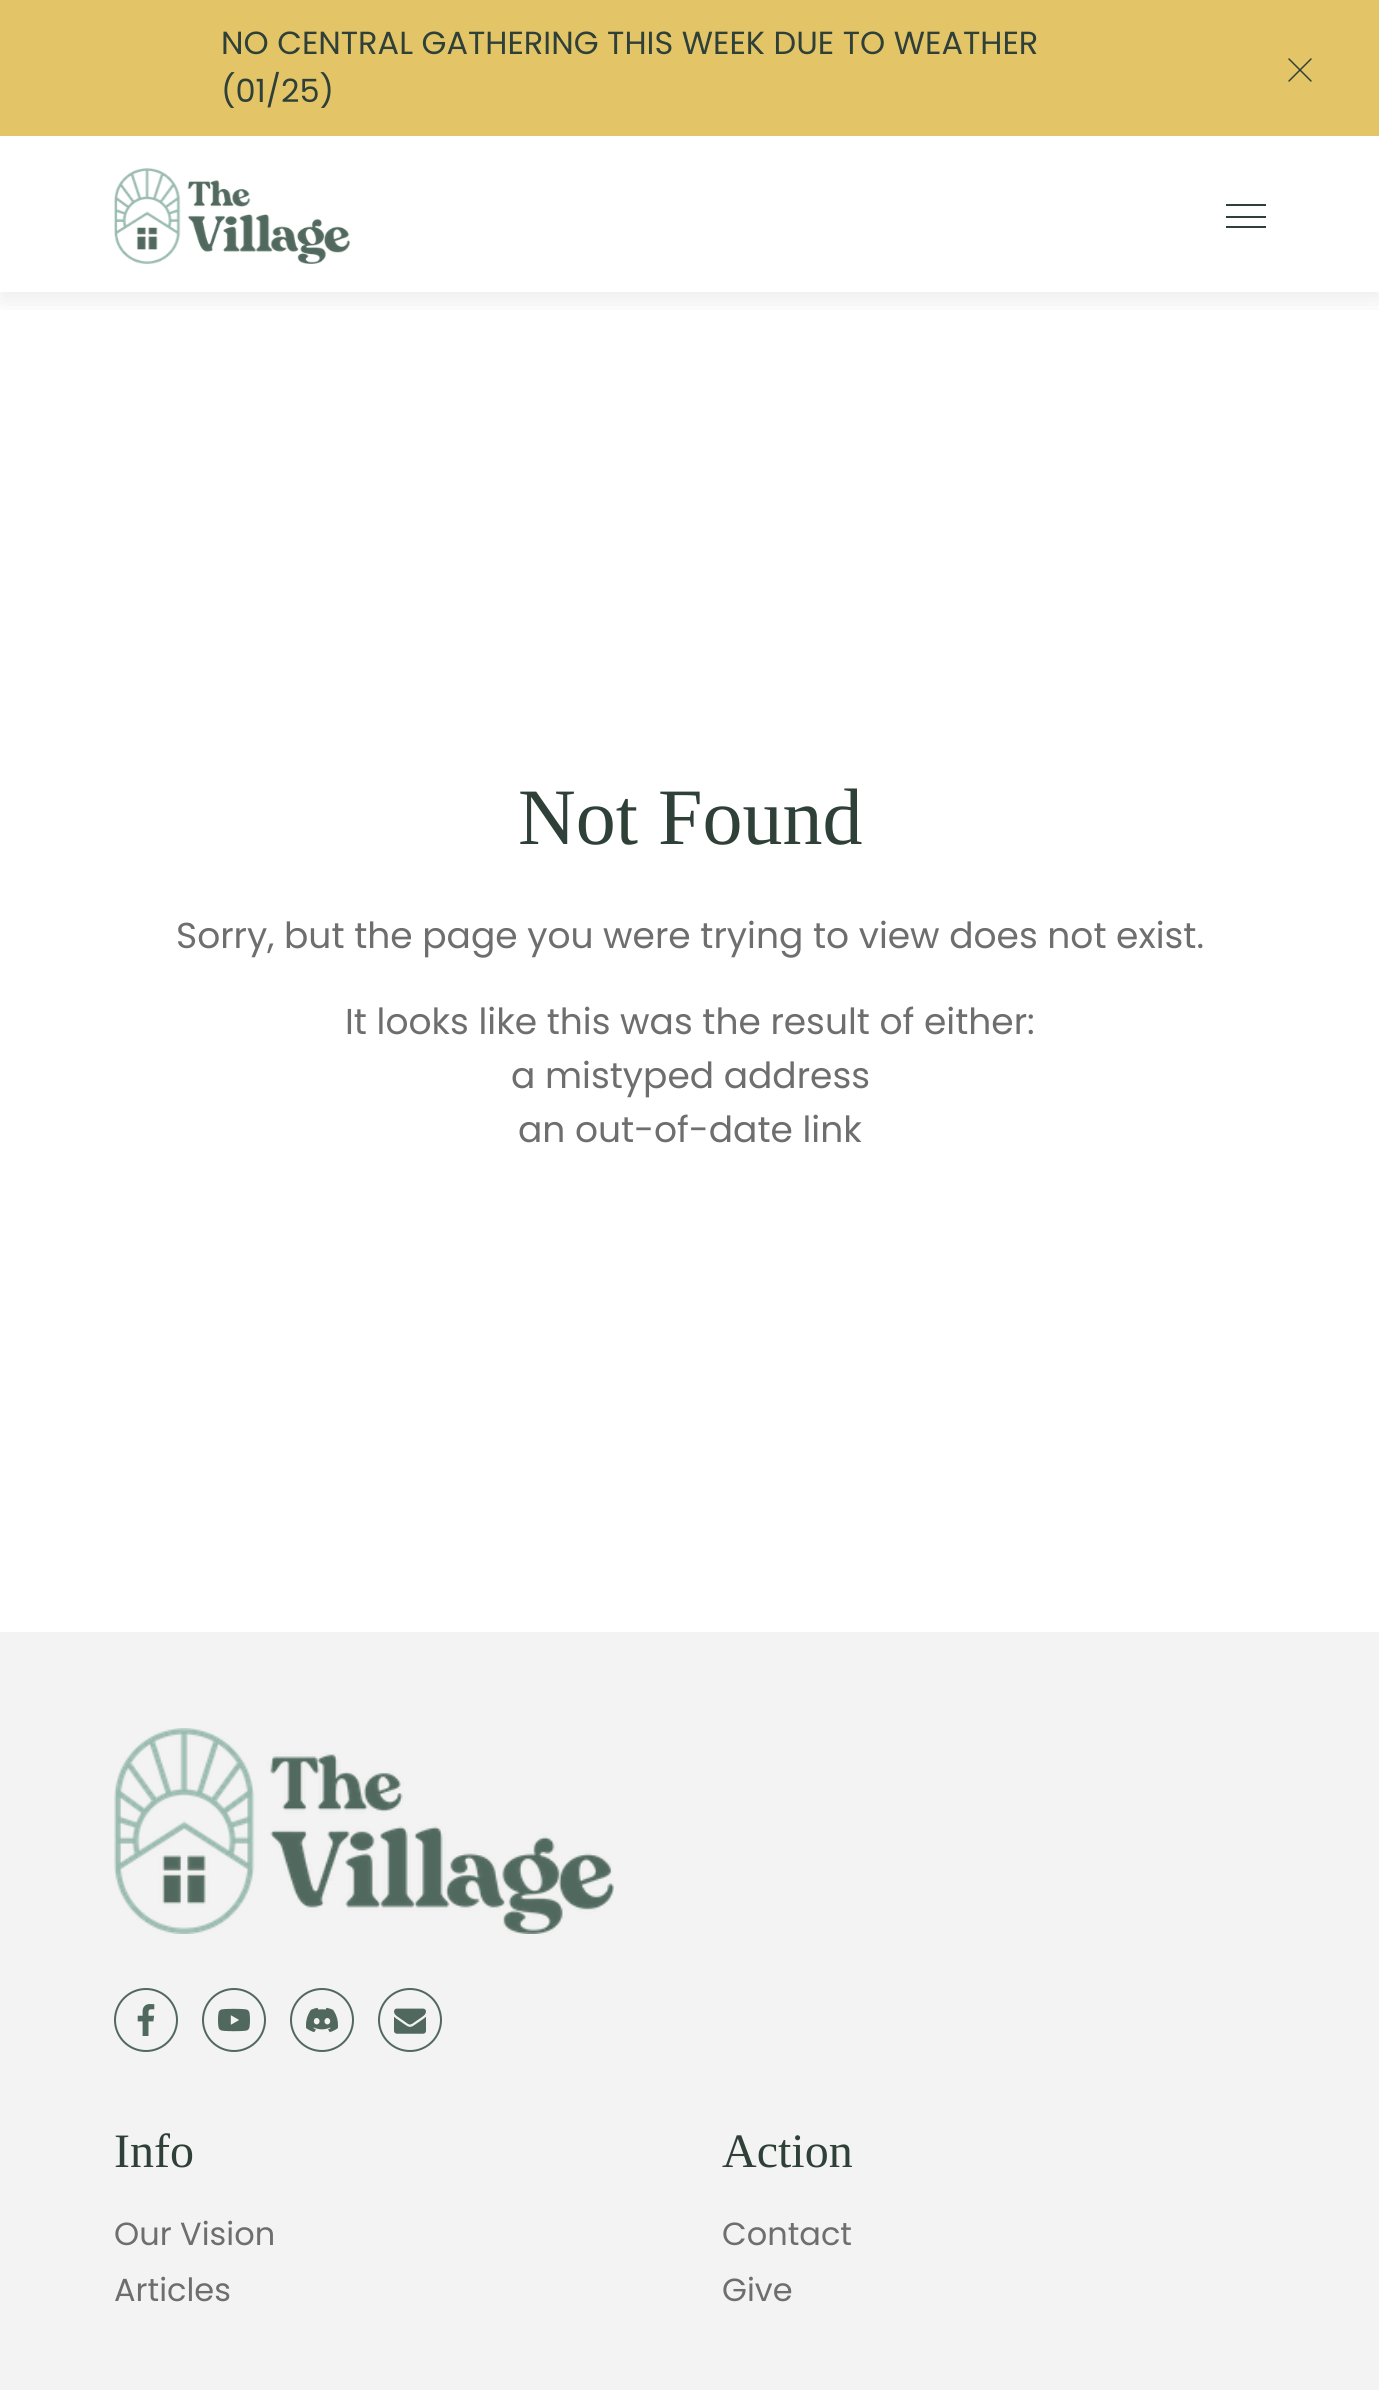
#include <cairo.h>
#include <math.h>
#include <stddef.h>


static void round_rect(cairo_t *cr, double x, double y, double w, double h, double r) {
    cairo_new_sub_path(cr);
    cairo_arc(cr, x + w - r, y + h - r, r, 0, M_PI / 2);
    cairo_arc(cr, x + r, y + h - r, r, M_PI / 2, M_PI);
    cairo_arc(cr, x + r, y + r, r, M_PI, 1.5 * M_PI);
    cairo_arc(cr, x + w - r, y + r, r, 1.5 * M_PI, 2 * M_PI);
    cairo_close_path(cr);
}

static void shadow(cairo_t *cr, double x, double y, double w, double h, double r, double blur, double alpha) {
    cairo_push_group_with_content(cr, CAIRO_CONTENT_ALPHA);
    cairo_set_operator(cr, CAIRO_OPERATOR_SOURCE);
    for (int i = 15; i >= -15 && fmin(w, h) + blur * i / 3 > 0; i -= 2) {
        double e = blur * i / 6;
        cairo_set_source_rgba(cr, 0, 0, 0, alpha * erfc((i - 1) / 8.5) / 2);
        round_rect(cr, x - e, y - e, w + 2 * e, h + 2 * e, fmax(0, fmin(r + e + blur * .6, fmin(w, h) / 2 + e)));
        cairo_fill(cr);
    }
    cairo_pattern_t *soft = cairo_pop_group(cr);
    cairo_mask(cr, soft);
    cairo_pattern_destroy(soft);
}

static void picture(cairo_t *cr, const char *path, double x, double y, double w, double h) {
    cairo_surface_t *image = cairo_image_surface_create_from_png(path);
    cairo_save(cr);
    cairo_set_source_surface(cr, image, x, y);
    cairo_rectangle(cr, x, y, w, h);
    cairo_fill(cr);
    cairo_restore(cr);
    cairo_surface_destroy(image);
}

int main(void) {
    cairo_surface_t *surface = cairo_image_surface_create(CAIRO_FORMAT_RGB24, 1379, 2390);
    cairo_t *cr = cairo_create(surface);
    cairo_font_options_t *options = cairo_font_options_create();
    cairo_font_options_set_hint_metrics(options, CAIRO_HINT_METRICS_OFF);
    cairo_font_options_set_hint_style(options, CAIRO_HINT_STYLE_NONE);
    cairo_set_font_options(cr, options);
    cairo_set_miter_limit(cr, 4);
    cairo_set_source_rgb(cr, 1, 1, 1);
    cairo_paint(cr);
    cairo_save(cr);
    cairo_rectangle(cr, 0, 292, 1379, 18);
    cairo_clip(cr);
    cairo_set_source_rgb(cr, 0.267, 0.267, 0.267);
    shadow(cr, 0, 8, 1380, 292, 0, 12, 0.1);
    cairo_restore(cr);
    cairo_set_source_rgb(cr, 0.89, 0.773, 0.404);
    cairo_rectangle(cr, 0, 0, 1379, 136);
    cairo_fill(cr);
    cairo_select_font_face(cr, "Poppins", CAIRO_FONT_SLANT_NORMAL, CAIRO_FONT_WEIGHT_NORMAL);
    cairo_set_font_size(cr, 32);
    cairo_set_source_rgb(cr, 0.184, 0.251, 0.22);
    cairo_move_to(cr, 221, 54);
    cairo_show_text(cr, "NO CENTRAL GATHERING THIS WEEK DUE TO WEATHER");
    cairo_move_to(cr, 221, 102);
    cairo_show_text(cr, "(01/25)");
    picture(cr, "img1.png", 1288, 58, 24, 24);
    picture(cr, "img2.png", 114, 168, 236, 96);
    cairo_rectangle(cr, 1226, 204, 40, 2);
    cairo_fill(cr);
    cairo_rectangle(cr, 1226, 216, 40, 2);
    cairo_fill(cr);
    cairo_rectangle(cr, 1226, 226, 40, 2);
    cairo_fill(cr);
    cairo_select_font_face(cr, "Liberation Serif", CAIRO_FONT_SLANT_NORMAL, CAIRO_FONT_WEIGHT_NORMAL);
    cairo_set_font_size(cr, 80);
    cairo_move_to(cr, 518, 844);
    cairo_show_text(cr, "Not Found");
    cairo_select_font_face(cr, "Poppins", CAIRO_FONT_SLANT_NORMAL, CAIRO_FONT_WEIGHT_NORMAL);
    cairo_set_font_size(cr, 36);
    cairo_set_source_rgb(cr, 0.431, 0.431, 0.431);
    cairo_move_to(cr, 176, 948);
    cairo_show_text(cr, "Sorry, but the page you were trying to view does not exist.");
    cairo_move_to(cr, 345, 1034);
    cairo_show_text(cr, "It looks like this was the result of either:");
    cairo_move_to(cr, 511, 1088);
    cairo_show_text(cr, "a mistyped address");
    cairo_move_to(cr, 518, 1142);
    cairo_show_text(cr, "an out-of-date link");
    cairo_set_source_rgb(cr, 0.953, 0.953, 0.953);
    cairo_rectangle(cr, 0, 1632, 1379, 758);
    cairo_fill(cr);
    picture(cr, "img3.png", 114, 1728, 500, 206);
    cairo_arc(cr, 146, 2020, 31, 0, 2 * M_PI);
    cairo_set_source_rgb(cr, 0.314, 0.408, 0.365);
    cairo_stroke(cr);
    picture(cr, "img4.png", 137, 2004, 18, 32);
    cairo_arc(cr, 234, 2020, 31, 0, 2 * M_PI);
    cairo_stroke(cr);
    picture(cr, "img5.png", 218, 2008, 32, 24);
    cairo_arc(cr, 322, 2020, 31, 0, 2 * M_PI);
    cairo_stroke(cr);
    picture(cr, "img6.png", 306, 2007, 32, 26);
    cairo_arc(cr, 410, 2020, 31, 0, 2 * M_PI);
    cairo_stroke(cr);
    picture(cr, "img7.png", 394, 2008, 32, 26);
    cairo_select_font_face(cr, "Liberation Serif", CAIRO_FONT_SLANT_NORMAL, CAIRO_FONT_WEIGHT_NORMAL);
    cairo_set_font_size(cr, 48);
    cairo_set_source_rgb(cr, 0.184, 0.251, 0.22);
    cairo_move_to(cr, 114, 2167);
    cairo_show_text(cr, "Info");
    cairo_select_font_face(cr, "Poppins", CAIRO_FONT_SLANT_NORMAL, CAIRO_FONT_WEIGHT_NORMAL);
    cairo_set_font_size(cr, 32);
    cairo_set_source_rgb(cr, 0.431, 0.431, 0.431);
    cairo_move_to(cr, 114, 2245);
    cairo_show_text(cr, "Our Vision");
    cairo_move_to(cr, 114, 2301);
    cairo_show_text(cr, "Articles");
    cairo_select_font_face(cr, "Liberation Serif", CAIRO_FONT_SLANT_NORMAL, CAIRO_FONT_WEIGHT_NORMAL);
    cairo_set_font_size(cr, 48);
    cairo_set_source_rgb(cr, 0.184, 0.251, 0.22);
    cairo_move_to(cr, 722, 2167);
    cairo_show_text(cr, "Action");
    cairo_select_font_face(cr, "Poppins", CAIRO_FONT_SLANT_NORMAL, CAIRO_FONT_WEIGHT_NORMAL);
    cairo_set_font_size(cr, 32);
    cairo_set_source_rgb(cr, 0.431, 0.431, 0.431);
    cairo_move_to(cr, 722, 2245);
    cairo_show_text(cr, "Contact");
    cairo_move_to(cr, 722, 2301);
    cairo_show_text(cr, "Give");
    cairo_surface_write_to_png(surface, "page.png");
    cairo_font_options_destroy(options);
    cairo_destroy(cr);
    cairo_surface_destroy(surface);
    return 0;
}
